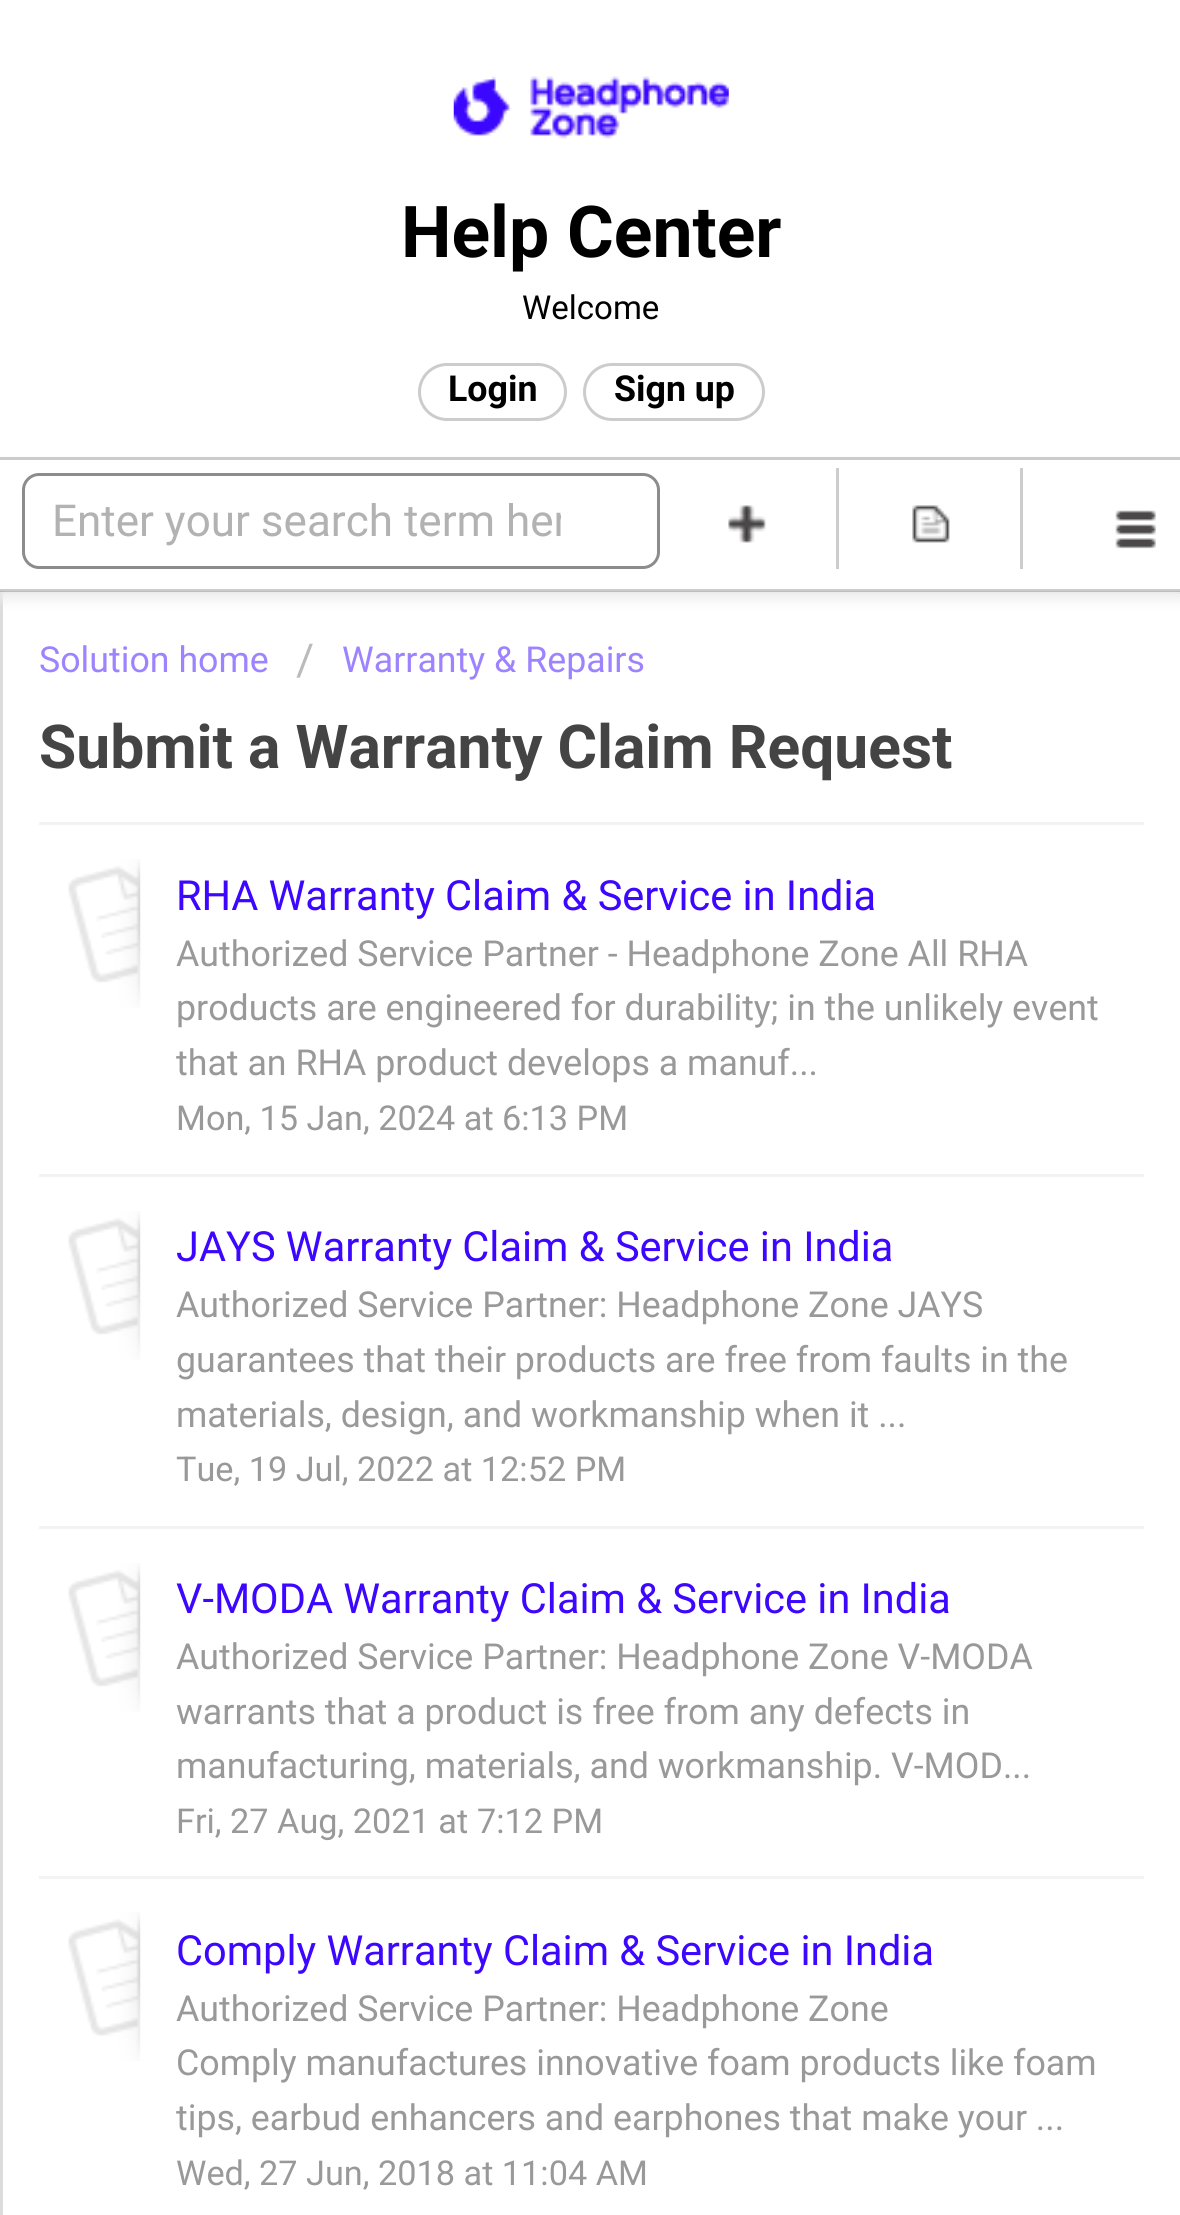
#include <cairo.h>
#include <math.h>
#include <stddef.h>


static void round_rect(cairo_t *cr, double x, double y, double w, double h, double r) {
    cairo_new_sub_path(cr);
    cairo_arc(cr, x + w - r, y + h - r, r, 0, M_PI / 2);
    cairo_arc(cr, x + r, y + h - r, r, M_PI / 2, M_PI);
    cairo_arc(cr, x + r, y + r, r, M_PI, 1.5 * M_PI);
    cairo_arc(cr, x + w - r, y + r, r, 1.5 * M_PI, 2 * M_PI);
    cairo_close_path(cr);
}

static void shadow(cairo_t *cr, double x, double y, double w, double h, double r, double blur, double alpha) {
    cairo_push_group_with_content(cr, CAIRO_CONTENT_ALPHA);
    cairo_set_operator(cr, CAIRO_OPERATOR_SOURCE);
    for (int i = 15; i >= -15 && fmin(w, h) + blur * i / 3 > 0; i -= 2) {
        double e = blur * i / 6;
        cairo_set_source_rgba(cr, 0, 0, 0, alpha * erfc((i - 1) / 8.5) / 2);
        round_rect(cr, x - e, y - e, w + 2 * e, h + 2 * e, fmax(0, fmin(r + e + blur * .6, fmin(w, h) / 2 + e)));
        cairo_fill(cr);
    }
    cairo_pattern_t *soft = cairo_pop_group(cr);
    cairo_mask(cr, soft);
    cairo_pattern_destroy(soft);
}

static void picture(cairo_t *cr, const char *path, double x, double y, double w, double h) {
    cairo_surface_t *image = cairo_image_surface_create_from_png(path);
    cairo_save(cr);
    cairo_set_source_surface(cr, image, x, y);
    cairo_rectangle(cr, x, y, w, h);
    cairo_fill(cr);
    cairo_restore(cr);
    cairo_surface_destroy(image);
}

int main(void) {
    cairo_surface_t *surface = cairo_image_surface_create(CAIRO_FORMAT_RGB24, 1180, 2215);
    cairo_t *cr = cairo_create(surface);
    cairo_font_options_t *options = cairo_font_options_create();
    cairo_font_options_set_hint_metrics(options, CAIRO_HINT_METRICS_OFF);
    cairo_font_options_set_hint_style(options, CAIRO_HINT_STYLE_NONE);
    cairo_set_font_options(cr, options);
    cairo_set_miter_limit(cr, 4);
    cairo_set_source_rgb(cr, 1, 1, 1);
    cairo_paint(cr);
    picture(cr, "img1.png", 453, 76, 276, 63);
    cairo_select_font_face(cr, "Roboto", CAIRO_FONT_SLANT_NORMAL, CAIRO_FONT_WEIGHT_BOLD);
    cairo_set_font_size(cr, 71.5);
    cairo_set_source_rgb(cr, 0, 0, 0);
    cairo_move_to(cr, 401, 257);
    cairo_show_text(cr, "Help Center");
    cairo_select_font_face(cr, "Roboto", CAIRO_FONT_SLANT_NORMAL, CAIRO_FONT_WEIGHT_NORMAL);
    cairo_set_font_size(cr, 33);
    cairo_move_to(cr, 522, 319);
    cairo_show_text(cr, "Welcome");
    round_rect(cr, 419.5, 364.5, 146, 55, 27.5);
    cairo_set_source_rgb(cr, 0.8, 0.8, 0.8);
    cairo_set_line_width(cr, 3);
    cairo_stroke(cr);
    cairo_select_font_face(cr, "Roboto", CAIRO_FONT_SLANT_NORMAL, CAIRO_FONT_WEIGHT_BOLD);
    cairo_set_font_size(cr, 35.75);
    cairo_set_source_rgb(cr, 0, 0, 0);
    cairo_move_to(cr, 448, 401);
    cairo_show_text(cr, "Login");
    round_rect(cr, 584.5, 364.5, 179, 55, 27.5);
    cairo_set_source_rgb(cr, 0.8, 0.8, 0.8);
    cairo_stroke(cr);
    cairo_set_source_rgb(cr, 0, 0, 0);
    cairo_move_to(cr, 614, 401);
    cairo_show_text(cr, "Sign up");
    cairo_rectangle(cr, 1.5, 592.5, 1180, 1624);
    cairo_set_source_rgb(cr, 0.863, 0.863, 0.863);
    cairo_stroke(cr);
    cairo_set_source_rgb(cr, 0.933, 0.933, 0.933);
    shadow(cr, 0, 465, 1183, 135, 0, 5.5, 1);
    cairo_set_source_rgb(cr, 1, 1, 1);
    cairo_rectangle(cr, 0, 460, 1180, 131);
    cairo_fill(cr);
    cairo_set_source_rgb(cr, 0.8, 0.8, 0.8);
    cairo_rectangle(cr, 0, 457, 1180, 3);
    cairo_fill(cr);
    cairo_set_source_rgba(cr, 0, 0, 0, 0.2);
    cairo_rectangle(cr, 0, 589, 1180, 3);
    cairo_fill(cr);
    picture(cr, "img2.png", 1115, 510, 41, 39);
    round_rect(cr, 23.5, 474.5, 635, 93, 15.5);
    cairo_set_source_rgb(cr, 0.549, 0.549, 0.549);
    cairo_stroke(cr);
    cairo_save(cr);
    cairo_rectangle(cr, 52, 495, 509, 52);
    cairo_clip(cr);
    cairo_select_font_face(cr, "Roboto", CAIRO_FONT_SLANT_NORMAL, CAIRO_FONT_WEIGHT_NORMAL);
    cairo_set_font_size(cr, 44);
    cairo_set_source_rgb(cr, 0.698, 0.698, 0.698);
    cairo_move_to(cr, 52, 536);
    cairo_show_text(cr, "Enter your search term her");
    cairo_restore(cr);
    cairo_set_source_rgb(cr, 0.8, 0.8, 0.8);
    cairo_rectangle(cr, 836, 468, 3, 101);
    cairo_fill(cr);
    picture(cr, "img3.png", 728, 505, 38, 38);
    cairo_rectangle(cr, 1020, 468, 3, 101);
    cairo_fill(cr);
    picture(cr, "img4.png", 912, 505, 38, 38);
    cairo_select_font_face(cr, "Roboto", CAIRO_FONT_SLANT_NORMAL, CAIRO_FONT_WEIGHT_NORMAL);
    cairo_set_source_rgb(cr, 0.62, 0.514, 1);
    cairo_move_to(cr, 39, 672);
    cairo_show_text(cr, "Solution home");
    cairo_set_font_size(cr, 44);
    cairo_set_source_rgb(cr, 0.733, 0.733, 0.733);
    cairo_move_to(cr, 296, 675);
    cairo_show_text(cr, "/");
    cairo_set_font_size(cr, 35.75);
    cairo_set_source_rgb(cr, 0.62, 0.514, 1);
    cairo_move_to(cr, 342, 672);
    cairo_show_text(cr, "Warranty & Repairs");
    cairo_select_font_face(cr, "Roboto", CAIRO_FONT_SLANT_NORMAL, CAIRO_FONT_WEIGHT_BOLD);
    cairo_set_font_size(cr, 60.5);
    cairo_set_source_rgb(cr, 0.267, 0.267, 0.267);
    cairo_move_to(cr, 39, 768);
    cairo_show_text(cr, "Submit a Warranty Claim Request");
    cairo_set_source_rgb(cr, 0.953, 0.953, 0.953);
    cairo_rectangle(cr, 39, 822, 1105, 3);
    cairo_fill(cr);
    picture(cr, "img5.png", 68, 859, 73, 149);
    cairo_select_font_face(cr, "Roboto", CAIRO_FONT_SLANT_NORMAL, CAIRO_FONT_WEIGHT_NORMAL);
    cairo_set_font_size(cr, 41.5);
    cairo_set_source_rgb(cr, 0.235, 0.027, 1);
    cairo_move_to(cr, 176, 910);
    cairo_show_text(cr, "RHA Warranty Claim & Service in India");
    cairo_set_font_size(cr, 35.75);
    cairo_set_source_rgb(cr, 0.6, 0.6, 0.6);
    cairo_move_to(cr, 176, 966);
    cairo_show_text(cr, "Authorized Service Partner - Headphone Zone All RHA");
    cairo_move_to(cr, 176, 1020);
    cairo_show_text(cr, "products are engineered for durability; in the unlikely event");
    cairo_move_to(cr, 176, 1075);
    cairo_show_text(cr, "that an RHA product develops a manuf...");
    cairo_set_font_size(cr, 34.25);
    cairo_move_to(cr, 176, 1130);
    cairo_show_text(cr, "Mon, 15 Jan, 2024 at");
    cairo_move_to(cr, 502, 1130);
    cairo_show_text(cr, "6:13 PM");
    cairo_set_source_rgb(cr, 0.953, 0.953, 0.953);
    cairo_rectangle(cr, 39, 1174, 1105, 3);
    cairo_fill(cr);
    picture(cr, "img5.png", 68, 1211, 73, 149);
    cairo_set_font_size(cr, 41.5);
    cairo_set_source_rgb(cr, 0.235, 0.027, 1);
    cairo_move_to(cr, 176, 1261);
    cairo_show_text(cr, "JAYS Warranty Claim & Service in India");
    cairo_set_font_size(cr, 35.75);
    cairo_set_source_rgb(cr, 0.6, 0.6, 0.6);
    cairo_move_to(cr, 176, 1317);
    cairo_show_text(cr, "Authorized Service Partner: Headphone Zone JAYS");
    cairo_move_to(cr, 176, 1372);
    cairo_show_text(cr, "guarantees that their products are free from faults in the");
    cairo_move_to(cr, 176, 1427);
    cairo_show_text(cr, "materials, design, and workmanship when it ...");
    cairo_set_font_size(cr, 34.25);
    cairo_move_to(cr, 176, 1481);
    cairo_show_text(cr, "Tue, 19 Jul, 2022 at 12:52 PM");
    cairo_set_source_rgb(cr, 0.953, 0.953, 0.953);
    cairo_rectangle(cr, 39, 1526, 1105, 3);
    cairo_fill(cr);
    picture(cr, "img5.png", 68, 1563, 73, 149);
    cairo_set_font_size(cr, 41.5);
    cairo_set_source_rgb(cr, 0.235, 0.027, 1);
    cairo_move_to(cr, 176, 1613);
    cairo_show_text(cr, "V-MODA Warranty Claim & Service in India");
    cairo_set_font_size(cr, 35.75);
    cairo_set_source_rgb(cr, 0.6, 0.6, 0.6);
    cairo_move_to(cr, 176, 1669);
    cairo_show_text(cr, "Authorized Service Partner: Headphone Zone V-MODA");
    cairo_move_to(cr, 176, 1724);
    cairo_show_text(cr, "warrants that a product is free from any defects in");
    cairo_move_to(cr, 176, 1778);
    cairo_show_text(cr, "manufacturing, materials, and workmanship. V-MOD...");
    cairo_set_font_size(cr, 34.25);
    cairo_move_to(cr, 176, 1833);
    cairo_show_text(cr, "Fri, 27 Aug, 2021 at");
    cairo_move_to(cr, 477, 1833);
    cairo_show_text(cr, "7:12 PM");
    cairo_set_source_rgb(cr, 0.953, 0.953, 0.953);
    cairo_rectangle(cr, 39, 1876, 1105, 3);
    cairo_fill(cr);
    picture(cr, "img6.png", 68, 1912, 73, 149);
    cairo_set_font_size(cr, 41.5);
    cairo_set_source_rgb(cr, 0.235, 0.027, 1);
    cairo_move_to(cr, 176, 1965);
    cairo_show_text(cr, "Comply Warranty Claim & Service in India");
    cairo_set_font_size(cr, 35.75);
    cairo_set_source_rgb(cr, 0.6, 0.6, 0.6);
    cairo_move_to(cr, 176, 2021);
    cairo_show_text(cr, "Authorized Service Partner: Headphone Zone");
    cairo_move_to(cr, 176, 2075);
    cairo_show_text(cr, "Comply manufactures innovative foam products like foam");
    cairo_move_to(cr, 176, 2130);
    cairo_show_text(cr, "tips, earbud enhancers and earphones that make your ...");
    cairo_set_font_size(cr, 34.25);
    cairo_move_to(cr, 176, 2185);
    cairo_show_text(cr, "Wed, 27 Jun, 2018 at 11:04 AM");
    cairo_surface_write_to_png(surface, "page.png");
    cairo_font_options_destroy(options);
    cairo_destroy(cr);
    cairo_surface_destroy(surface);
    return 0;
}
